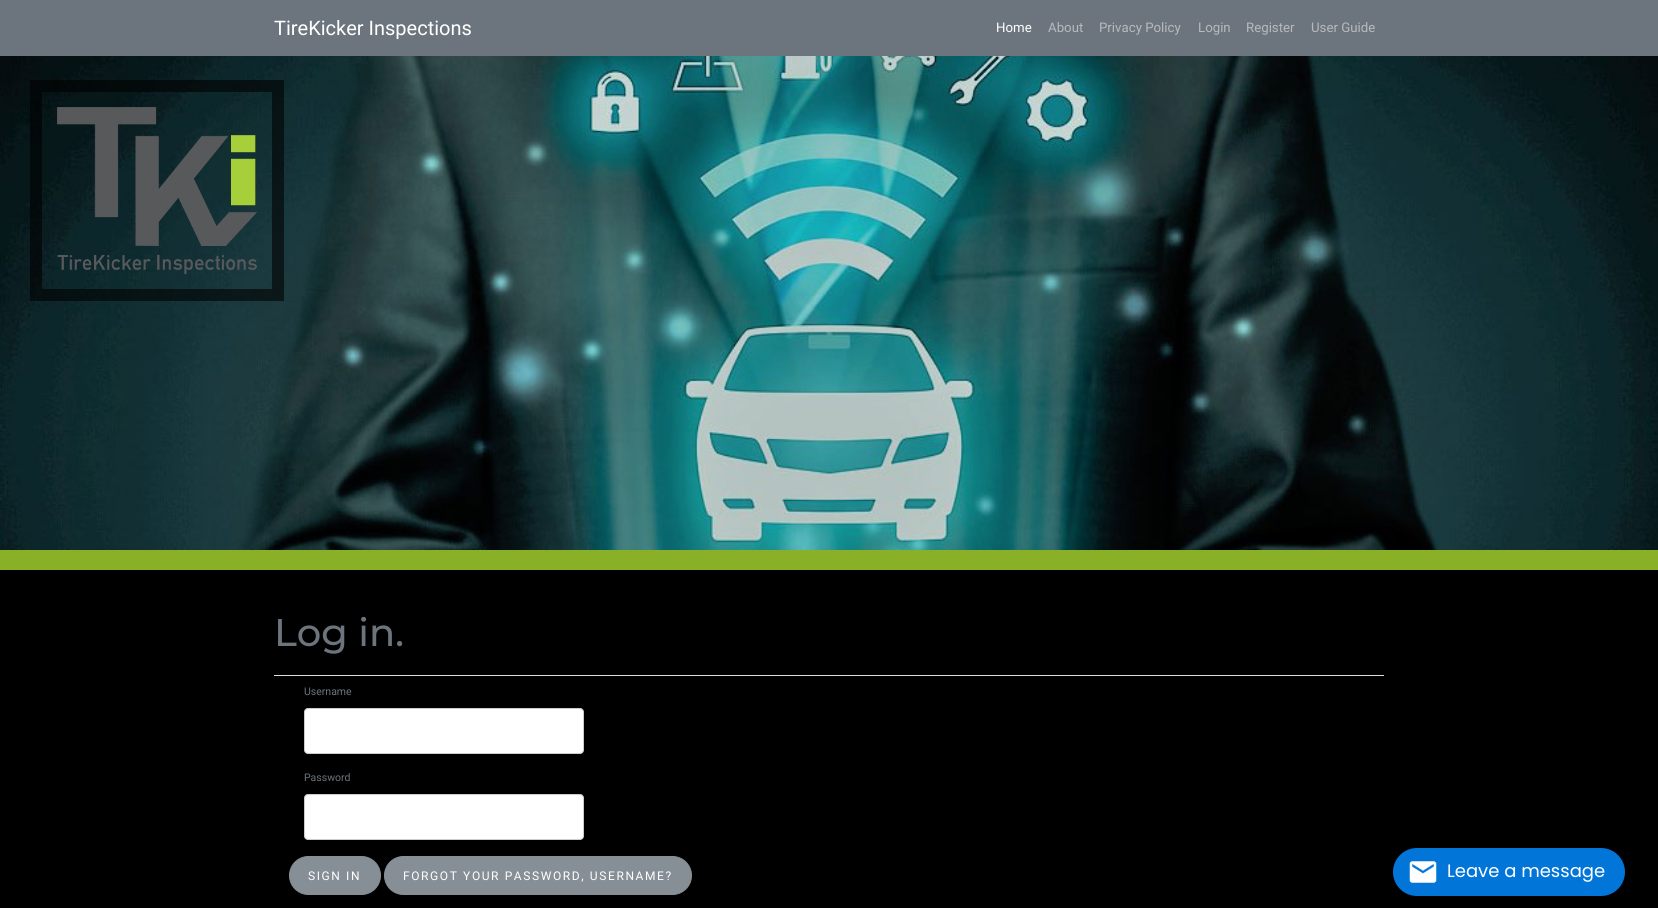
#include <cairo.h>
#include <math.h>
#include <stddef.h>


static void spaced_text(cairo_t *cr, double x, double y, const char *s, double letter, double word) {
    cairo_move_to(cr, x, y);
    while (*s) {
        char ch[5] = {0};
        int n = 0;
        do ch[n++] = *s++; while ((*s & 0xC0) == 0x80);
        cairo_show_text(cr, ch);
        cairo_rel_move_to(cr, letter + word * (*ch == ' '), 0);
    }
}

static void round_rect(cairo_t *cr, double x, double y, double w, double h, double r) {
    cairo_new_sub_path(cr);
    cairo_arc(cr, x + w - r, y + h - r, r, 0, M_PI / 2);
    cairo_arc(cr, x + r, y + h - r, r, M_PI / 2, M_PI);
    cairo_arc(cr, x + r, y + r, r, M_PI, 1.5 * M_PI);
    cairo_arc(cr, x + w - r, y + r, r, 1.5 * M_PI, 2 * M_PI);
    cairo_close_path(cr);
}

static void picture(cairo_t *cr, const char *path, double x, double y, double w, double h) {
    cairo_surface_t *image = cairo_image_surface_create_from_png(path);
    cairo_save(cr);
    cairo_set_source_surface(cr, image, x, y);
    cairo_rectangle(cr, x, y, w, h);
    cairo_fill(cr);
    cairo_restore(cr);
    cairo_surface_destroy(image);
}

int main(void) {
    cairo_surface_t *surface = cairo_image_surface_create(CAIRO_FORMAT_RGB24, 1658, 908);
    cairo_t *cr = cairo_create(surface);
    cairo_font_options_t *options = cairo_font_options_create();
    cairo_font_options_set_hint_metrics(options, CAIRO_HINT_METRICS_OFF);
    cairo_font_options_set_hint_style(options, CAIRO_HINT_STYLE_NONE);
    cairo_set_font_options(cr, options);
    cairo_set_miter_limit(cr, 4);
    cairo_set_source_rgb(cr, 0, 0, 0);
    cairo_paint(cr);
    cairo_set_source_rgb(cr, 0.424, 0.459, 0.49);
    cairo_rectangle(cr, 0, 0, 1658, 56);
    cairo_fill(cr);
    cairo_select_font_face(cr, "Roboto", CAIRO_FONT_SLANT_NORMAL, CAIRO_FONT_WEIGHT_NORMAL);
    cairo_set_font_size(cr, 20);
    cairo_set_source_rgb(cr, 1, 1, 1);
    cairo_move_to(cr, 274, 35);
    cairo_show_text(cr, "TireKicker Inspections");
    cairo_set_font_size(cr, 13.25);
    cairo_move_to(cr, 996, 32);
    cairo_show_text(cr, "Home");
    cairo_set_source_rgb(cr, 0.714, 0.729, 0.745);
    cairo_move_to(cr, 1048, 32);
    cairo_show_text(cr, "About");
    cairo_move_to(cr, 1099, 32);
    cairo_show_text(cr, "Privacy Policy");
    cairo_move_to(cr, 1198, 32);
    cairo_show_text(cr, "Login");
    cairo_move_to(cr, 1246, 32);
    cairo_show_text(cr, "Register");
    cairo_move_to(cr, 1311, 32);
    cairo_show_text(cr, "User Guide");
    picture(cr, "img1.png", 0, 56, 1658, 494);
    cairo_rectangle(cr, 36, 86, 242, 209);
    cairo_set_source_rgba(cr, 0, 0, 0, 0.6);
    cairo_set_line_width(cr, 12);
    cairo_stroke(cr);
    picture(cr, "img2.png", 57, 107, 200, 167);
    cairo_set_source_rgb(cr, 0.537, 0.69, 0.149);
    cairo_rectangle(cr, 0, 550, 1658, 20);
    cairo_fill(cr);
    cairo_set_source_rgb(cr, 0.875, 0.875, 0.875);
    cairo_rectangle(cr, 274, 675, 1110, 1);
    cairo_fill(cr);
    cairo_select_font_face(cr, "Montserrat Medium", CAIRO_FONT_SLANT_NORMAL, CAIRO_FONT_WEIGHT_NORMAL);
    cairo_set_font_size(cr, 38.5);
    cairo_set_source_rgb(cr, 0.424, 0.459, 0.49);
    cairo_move_to(cr, 274, 646);
    cairo_show_text(cr, "Log in.");
    cairo_select_font_face(cr, "Roboto", CAIRO_FONT_SLANT_NORMAL, CAIRO_FONT_WEIGHT_NORMAL);
    cairo_set_font_size(cr, 10.5);
    cairo_move_to(cr, 304, 695);
    cairo_show_text(cr, "Username");
    cairo_set_source_rgb(cr, 1, 1, 1);
    round_rect(cr, 304.5, 708.5, 279, 45, 3.5);
    cairo_fill_preserve(cr);
    cairo_set_source_rgb(cr, 0.8, 0.8, 0.8);
    cairo_set_line_width(cr, 1);
    cairo_stroke(cr);
    cairo_set_source_rgb(cr, 0.424, 0.459, 0.49);
    cairo_move_to(cr, 304, 781);
    cairo_show_text(cr, "Password");
    cairo_set_source_rgb(cr, 1, 1, 1);
    round_rect(cr, 304.5, 794.5, 279, 45, 3.5);
    cairo_fill_preserve(cr);
    cairo_set_source_rgb(cr, 0.8, 0.8, 0.8);
    cairo_stroke(cr);
    cairo_set_source_rgb(cr, 0.525, 0.557, 0.588);
    round_rect(cr, 289.5, 856.5, 91, 38, 19);
    cairo_fill_preserve(cr);
    cairo_stroke(cr);
    cairo_set_font_size(cr, 12);
    cairo_set_source_rgb(cr, 1, 1, 1);
    spaced_text(cr, 308, 880, "SIGN IN", 1.6, 0);
    cairo_set_source_rgb(cr, 0.525, 0.557, 0.588);
    round_rect(cr, 384.5, 856.5, 307, 38, 19);
    cairo_fill_preserve(cr);
    cairo_stroke(cr);
    cairo_set_source_rgb(cr, 1, 1, 1);
    spaced_text(cr, 403, 880, "FORGOT YOUR PASSWORD, USERNAME?", 1.6, 0);
    cairo_set_source_rgb(cr, 0.008, 0.459, 0.847);
    round_rect(cr, 1393, 848, 232, 48, 24);
    cairo_fill(cr);
    picture(cr, "img3.png", 1409, 861, 28, 22);
    cairo_select_font_face(cr, "Poppins", CAIRO_FONT_SLANT_NORMAL, CAIRO_FONT_WEIGHT_NORMAL);
    cairo_set_font_size(cr, 18);
    cairo_set_source_rgb(cr, 1, 1, 1);
    cairo_move_to(cr, 1447, 877);
    cairo_show_text(cr, "Leave a message");
    cairo_surface_write_to_png(surface, "page.png");
    cairo_font_options_destroy(options);
    cairo_destroy(cr);
    cairo_surface_destroy(surface);
    return 0;
}
